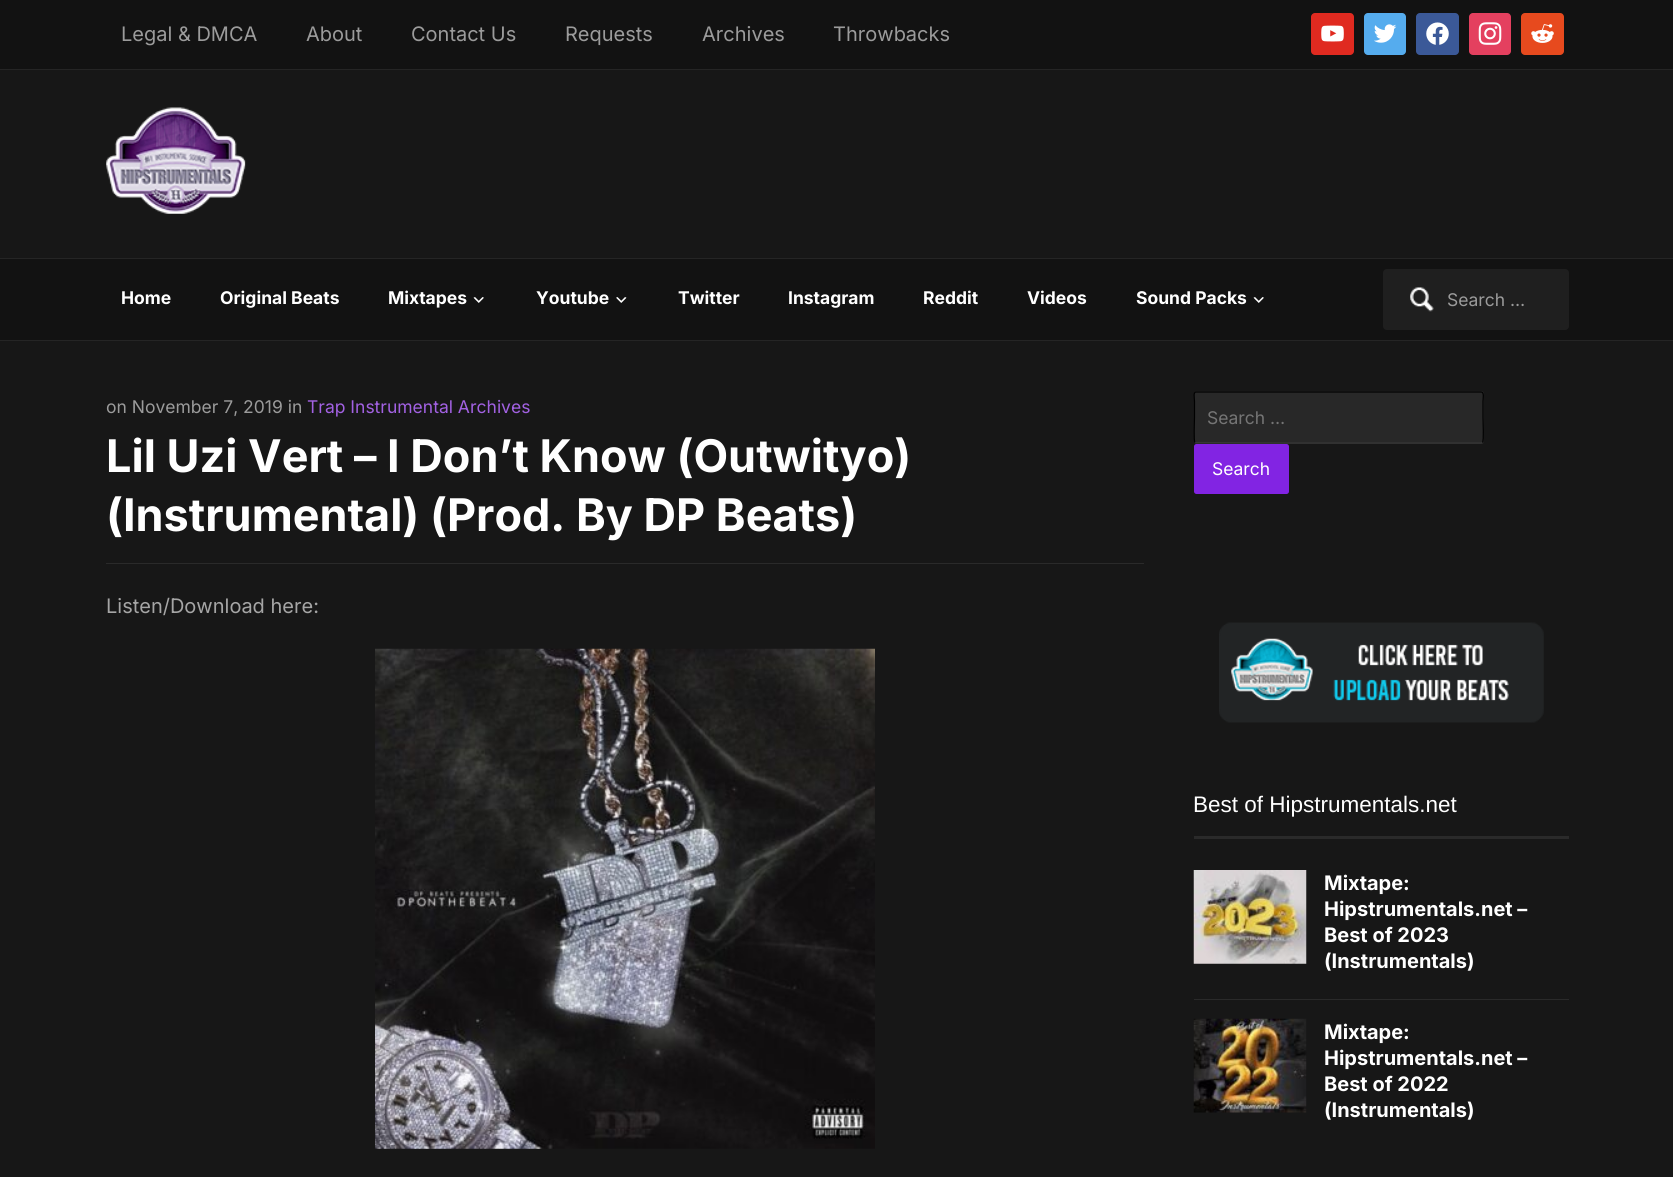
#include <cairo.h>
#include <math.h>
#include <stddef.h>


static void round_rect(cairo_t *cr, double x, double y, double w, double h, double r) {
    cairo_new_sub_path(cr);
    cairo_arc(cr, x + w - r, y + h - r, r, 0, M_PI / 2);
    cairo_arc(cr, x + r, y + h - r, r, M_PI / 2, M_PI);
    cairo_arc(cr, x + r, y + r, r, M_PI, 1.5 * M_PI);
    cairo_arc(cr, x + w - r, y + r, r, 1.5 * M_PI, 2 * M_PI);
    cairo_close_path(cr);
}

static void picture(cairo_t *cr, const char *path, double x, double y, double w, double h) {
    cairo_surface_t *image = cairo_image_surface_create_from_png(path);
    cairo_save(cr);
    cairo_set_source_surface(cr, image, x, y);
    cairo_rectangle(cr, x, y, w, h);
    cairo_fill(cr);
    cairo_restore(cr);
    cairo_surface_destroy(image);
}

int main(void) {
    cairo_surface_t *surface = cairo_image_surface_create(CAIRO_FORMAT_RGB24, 1673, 1177);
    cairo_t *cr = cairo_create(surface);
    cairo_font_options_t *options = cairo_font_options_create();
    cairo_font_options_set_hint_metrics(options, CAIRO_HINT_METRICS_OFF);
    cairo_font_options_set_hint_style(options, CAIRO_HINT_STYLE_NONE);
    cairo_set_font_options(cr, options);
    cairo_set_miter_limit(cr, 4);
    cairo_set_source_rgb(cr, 0.09, 0.09, 0.09);
    cairo_paint(cr);
    cairo_set_source_rgb(cr, 0.071, 0.071, 0.071);
    cairo_rectangle(cr, 0, 0, 1673, 69);
    cairo_fill(cr);
    cairo_set_source_rgb(cr, 0.145, 0.145, 0.145);
    cairo_rectangle(cr, 0, 69, 1673, 1);
    cairo_fill(cr);
    cairo_select_font_face(cr, "Inter", CAIRO_FONT_SLANT_NORMAL, CAIRO_FONT_WEIGHT_NORMAL);
    cairo_set_font_size(cr, 20);
    cairo_set_source_rgb(cr, 0.608, 0.608, 0.608);
    cairo_move_to(cr, 121, 41);
    cairo_show_text(cr, "Legal & DMCA");
    cairo_move_to(cr, 306, 41);
    cairo_show_text(cr, "About");
    cairo_move_to(cr, 411, 41);
    cairo_show_text(cr, "Contact Us");
    cairo_move_to(cr, 565, 41);
    cairo_show_text(cr, "Requests");
    cairo_move_to(cr, 702, 41);
    cairo_show_text(cr, "Archives");
    cairo_move_to(cr, 833, 41);
    cairo_show_text(cr, "Throwbacks");
    cairo_set_source_rgb(cr, 0.878, 0.165, 0.125);
    round_rect(cr, 1311, 13, 43, 42, 4);
    cairo_fill(cr);
    picture(cr, "img1.png", 1321, 25, 23, 17);
    cairo_set_source_rgb(cr, 0.333, 0.675, 0.933);
    round_rect(cr, 1364, 13, 42, 42, 4);
    cairo_fill(cr);
    picture(cr, "img2.png", 1374, 24, 23, 19);
    cairo_set_source_rgb(cr, 0.231, 0.349, 0.596);
    round_rect(cr, 1416, 13, 43, 42, 4);
    cairo_fill(cr);
    picture(cr, "img3.png", 1426, 22, 23, 23);
    cairo_set_source_rgb(cr, 0.894, 0.251, 0.373);
    round_rect(cr, 1469, 13, 42, 42, 4);
    cairo_fill(cr);
    picture(cr, "img4.png", 1478, 22, 24, 23);
    cairo_set_source_rgb(cr, 0.906, 0.29, 0.118);
    round_rect(cr, 1521, 13, 43, 42, 4);
    cairo_fill(cr);
    picture(cr, "img5.png", 1531, 24, 23, 19);
    picture(cr, "img6.png", 106, 107, 140, 107);
    cairo_set_source_rgb(cr, 0.071, 0.071, 0.071);
    cairo_rectangle(cr, 0, 259, 1673, 81);
    cairo_fill(cr);
    cairo_set_source_rgb(cr, 0.145, 0.145, 0.145);
    cairo_rectangle(cr, 0, 258, 1673, 1);
    cairo_fill(cr);
    cairo_rectangle(cr, 0, 340, 1673, 1);
    cairo_fill(cr);
    cairo_select_font_face(cr, "Inter", CAIRO_FONT_SLANT_NORMAL, CAIRO_FONT_WEIGHT_BOLD);
    cairo_set_font_size(cr, 17.5);
    cairo_set_source_rgb(cr, 1, 1, 1);
    cairo_move_to(cr, 121, 304);
    cairo_show_text(cr, "Home");
    cairo_move_to(cr, 220, 304);
    cairo_show_text(cr, "Original Beats");
    cairo_move_to(cr, 388, 304);
    cairo_show_text(cr, "Mixtapes");
    picture(cr, "img7.png", 473, 297, 11, 6);
    cairo_move_to(cr, 536, 304);
    cairo_show_text(cr, "Youtube");
    picture(cr, "img8.png", 616, 297, 11, 6);
    cairo_move_to(cr, 678, 304);
    cairo_show_text(cr, "Twitter");
    cairo_move_to(cr, 788, 304);
    cairo_show_text(cr, "Instagram");
    cairo_move_to(cr, 923, 304);
    cairo_show_text(cr, "Reddit");
    cairo_move_to(cr, 1027, 304);
    cairo_show_text(cr, "Videos");
    cairo_move_to(cr, 1136, 304);
    cairo_show_text(cr, "Sound Packs");
    picture(cr, "img7.png", 1253, 297, 11, 6);
    cairo_set_source_rgb(cr, 0.122, 0.122, 0.122);
    round_rect(cr, 1383, 269, 186, 61, 4);
    cairo_fill(cr);
    picture(cr, "img9.png", 1410, 287, 24, 25);
    cairo_select_font_face(cr, "Inter", CAIRO_FONT_SLANT_NORMAL, CAIRO_FONT_WEIGHT_NORMAL);
    cairo_set_source_rgb(cr, 0.608, 0.608, 0.608);
    cairo_move_to(cr, 1447, 306);
    cairo_show_text(cr, "Search …");
    cairo_move_to(cr, 106, 413);
    cairo_show_text(cr, "on November 7, 2019 in");
    cairo_set_source_rgb(cr, 0.635, 0.38, 0.886);
    cairo_move_to(cr, 307, 413);
    cairo_show_text(cr, "Trap Instrumental Archives");
    cairo_set_source_rgb(cr, 0.165, 0.165, 0.165);
    cairo_rectangle(cr, 106, 563, 1038, 1);
    cairo_fill(cr);
    cairo_select_font_face(cr, "Inter", CAIRO_FONT_SLANT_NORMAL, CAIRO_FONT_WEIGHT_BOLD);
    cairo_set_font_size(cr, 45);
    cairo_set_source_rgb(cr, 1, 1, 1);
    cairo_move_to(cr, 106, 472);
    cairo_show_text(cr, "Lil Uzi Vert – I Don’t Know (Outwityo)");
    cairo_move_to(cr, 106, 531);
    cairo_show_text(cr, "(Instrumental) (Prod. By DP Beats)");
    cairo_select_font_face(cr, "Inter", CAIRO_FONT_SLANT_NORMAL, CAIRO_FONT_WEIGHT_NORMAL);
    cairo_set_font_size(cr, 20);
    cairo_set_source_rgb(cr, 0.647, 0.647, 0.647);
    cairo_move_to(cr, 106, 613);
    cairo_show_text(cr, "Listen/Download here:");
    picture(cr, "img10.png", 375, 648, 500, 501);
    cairo_set_source_rgb(cr, 0.157, 0.157, 0.157);
    round_rect(cr, 1194, 391, 290, 53, 2.5);
    cairo_fill(cr);
    cairo_new_path(cr);
    cairo_move_to(cr, 1482.5, 442.5);
    cairo_line_to(cr, 1481, 443);
    cairo_line_to(cr, 1291, 443);
    cairo_line_to(cr, 1195, 442.5);
    cairo_set_source_rgb(cr, 0.216, 0.216, 0.216);
    cairo_set_line_width(cr, 1.2);
    cairo_stroke(cr);
    cairo_new_path(cr);
    cairo_move_to(cr, 1195, 442.5);
    cairo_curve_to(cr, 1193.5, 441, 1194.5, 421, 1194.5, 417.5);
    cairo_line_to(cr, 1194.5, 401.5);
    cairo_curve_to(cr, 1194.5, 398, 1193, 392, 1196, 392);
    cairo_line_to(cr, 1481, 392);
    cairo_curve_to(cr, 1484.5, 392, 1483, 398, 1483, 401.5);
    cairo_line_to(cr, 1483, 417.5);
    cairo_curve_to(cr, 1483, 421, 1484, 441, 1482.5, 442.5);
    cairo_set_source_rgb(cr, 0, 0, 0);
    cairo_stroke(cr);
    cairo_set_font_size(cr, 17.5);
    cairo_set_source_rgb(cr, 0.459, 0.459, 0.459);
    cairo_move_to(cr, 1207, 424);
    cairo_show_text(cr, "Search …");
    cairo_set_source_rgb(cr, 0.51, 0.141, 0.89);
    round_rect(cr, 1194, 444, 95, 50, 2.5);
    cairo_fill(cr);
    cairo_set_source_rgb(cr, 1, 1, 1);
    cairo_move_to(cr, 1212, 475);
    cairo_show_text(cr, "Search");
    picture(cr, "img11.png", 1219, 622, 325, 101);
    cairo_set_source_rgb(cr, 0.165, 0.165, 0.165);
    cairo_rectangle(cr, 1194, 836, 375, 3);
    cairo_fill(cr);
    cairo_select_font_face(cr, "Liberation Sans", CAIRO_FONT_SLANT_NORMAL, CAIRO_FONT_WEIGHT_NORMAL);
    cairo_set_font_size(cr, 22.5);
    cairo_set_source_rgb(cr, 1, 1, 1);
    cairo_move_to(cr, 1193, 812);
    cairo_show_text(cr, "Best of Hipstrumentals.net");
    cairo_set_source_rgb(cr, 0.165, 0.165, 0.165);
    cairo_rectangle(cr, 1194, 999, 375, 1);
    cairo_fill(cr);
    picture(cr, "img12.png", 1193, 870, 114, 94);
    cairo_select_font_face(cr, "Inter", CAIRO_FONT_SLANT_NORMAL, CAIRO_FONT_WEIGHT_BOLD);
    cairo_set_font_size(cr, 20);
    cairo_set_source_rgb(cr, 1, 1, 1);
    cairo_move_to(cr, 1324, 890);
    cairo_show_text(cr, "Mixtape:");
    cairo_move_to(cr, 1324, 916);
    cairo_show_text(cr, "Hipstrumentals.net –");
    cairo_move_to(cr, 1324, 942);
    cairo_show_text(cr, "Best of 2023");
    cairo_move_to(cr, 1324, 968);
    cairo_show_text(cr, "(Instrumentals)");
    picture(cr, "img13.png", 1193, 1018, 114, 95);
    cairo_move_to(cr, 1324, 1039);
    cairo_show_text(cr, "Mixtape:");
    cairo_move_to(cr, 1324, 1065);
    cairo_show_text(cr, "Hipstrumentals.net –");
    cairo_move_to(cr, 1324, 1091);
    cairo_show_text(cr, "Best of 2022");
    cairo_move_to(cr, 1324, 1117);
    cairo_show_text(cr, "(Instrumentals)");
    cairo_surface_write_to_png(surface, "page.png");
    cairo_font_options_destroy(options);
    cairo_destroy(cr);
    cairo_surface_destroy(surface);
    return 0;
}
